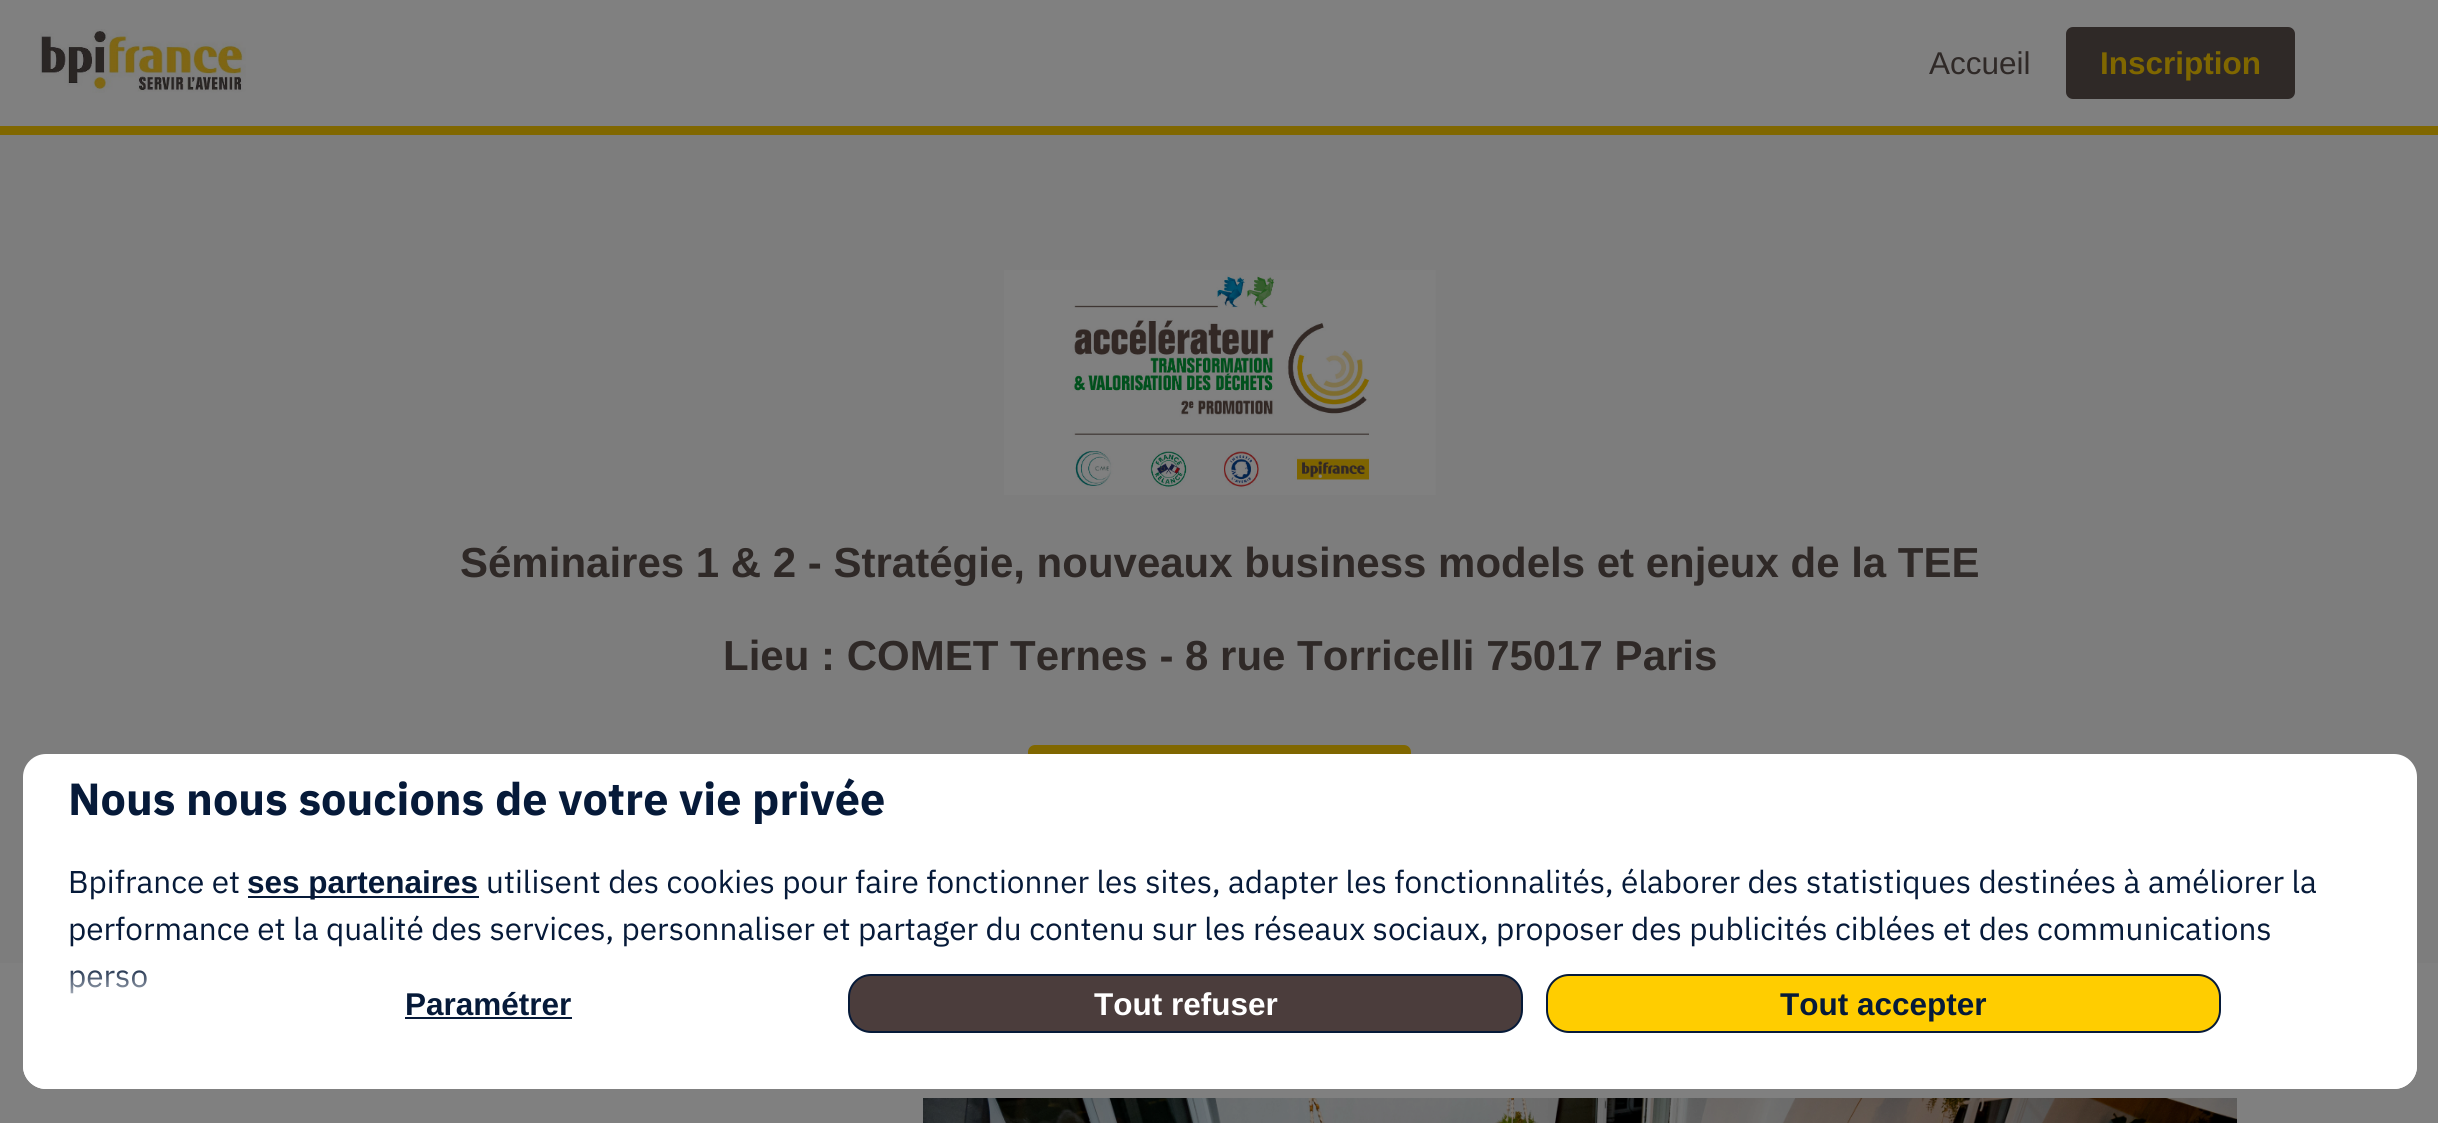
#include <cairo.h>
#include <math.h>
#include <stddef.h>


static void round_rect(cairo_t *cr, double x, double y, double w, double h, double r) {
    cairo_new_sub_path(cr);
    cairo_arc(cr, x + w - r, y + h - r, r, 0, M_PI / 2);
    cairo_arc(cr, x + r, y + h - r, r, M_PI / 2, M_PI);
    cairo_arc(cr, x + r, y + r, r, M_PI, 1.5 * M_PI);
    cairo_arc(cr, x + w - r, y + r, r, 1.5 * M_PI, 2 * M_PI);
    cairo_close_path(cr);
}

static void picture(cairo_t *cr, const char *path, double x, double y, double w, double h) {
    cairo_surface_t *image = cairo_image_surface_create_from_png(path);
    cairo_save(cr);
    cairo_set_source_surface(cr, image, x, y);
    cairo_rectangle(cr, x, y, w, h);
    cairo_fill(cr);
    cairo_restore(cr);
    cairo_surface_destroy(image);
}

int main(void) {
    cairo_surface_t *surface = cairo_image_surface_create(CAIRO_FORMAT_RGB24, 2438, 1123);
    cairo_t *cr = cairo_create(surface);
    cairo_font_options_t *options = cairo_font_options_create();
    cairo_font_options_set_hint_metrics(options, CAIRO_HINT_METRICS_OFF);
    cairo_font_options_set_hint_style(options, CAIRO_HINT_STYLE_NONE);
    cairo_set_font_options(cr, options);
    cairo_set_miter_limit(cr, 4);
    cairo_pattern_t *gradient;
    cairo_set_source_rgb(cr, 0.502, 0.502, 0.502);
    cairo_paint(cr);
    cairo_set_source_rgb(cr, 0.502, 0.404, 0);
    cairo_rectangle(cr, 0, 126, 2438, 9);
    cairo_fill(cr);
    picture(cr, "img1.png", 40, 29, 206, 64);
    cairo_select_font_face(cr, "Liberation Sans", CAIRO_FONT_SLANT_NORMAL, CAIRO_FONT_WEIGHT_NORMAL);
    cairo_set_font_size(cr, 31.5);
    cairo_set_source_rgb(cr, 0.184, 0.161, 0.153);
    cairo_move_to(cr, 1929, 74);
    cairo_show_text(cr, "Accueil");
    round_rect(cr, 2067, 28, 227, 70, 6);
    cairo_fill_preserve(cr);
    cairo_stroke(cr);
    cairo_select_font_face(cr, "Liberation Sans", CAIRO_FONT_SLANT_NORMAL, CAIRO_FONT_WEIGHT_BOLD);
    cairo_set_source_rgb(cr, 0.502, 0.404, 0);
    cairo_move_to(cr, 2100, 74);
    cairo_show_text(cr, "Inscription");
    cairo_set_source_rgb(cr, 0.49, 0.49, 0.49);
    cairo_rectangle(cr, 0, 135, 2438, 828);
    cairo_fill(cr);
    picture(cr, "img2.png", 1004, 270, 432, 225);
    cairo_set_font_size(cr, 42);
    cairo_set_source_rgb(cr, 0.184, 0.161, 0.153);
    cairo_move_to(cr, 460, 577);
    cairo_show_text(cr, "Séminaires 1 & 2 - Stratégie, nouveaux business models et enjeux de la TEE");
    cairo_move_to(cr, 723, 670);
    cairo_show_text(cr, "Lieu : COMET Ternes - 8 rue Torricelli 75017 Paris");
    cairo_set_source_rgb(cr, 0.502, 0.404, 0);
    round_rect(cr, 1029, 746, 381, 70, 6);
    cairo_fill_preserve(cr);
    cairo_stroke(cr);
    picture(cr, "img3.png", 923, 1098, 1314, 25);
    cairo_set_source_rgb(cr, 1, 1, 1);
    round_rect(cr, 23, 754, 2394, 335, 23);
    cairo_fill(cr);
    cairo_select_font_face(cr, "IBM Plex Sans", CAIRO_FONT_SLANT_NORMAL, CAIRO_FONT_WEIGHT_BOLD);
    cairo_set_font_size(cr, 45);
    cairo_set_source_rgb(cr, 0.027, 0.102, 0.224);
    cairo_move_to(cr, 68, 815);
    cairo_show_text(cr, "Nous nous soucions de votre vie privée");
    cairo_select_font_face(cr, "IBM Plex Sans", CAIRO_FONT_SLANT_NORMAL, CAIRO_FONT_WEIGHT_NORMAL);
    cairo_set_font_size(cr, 31.5);
    cairo_move_to(cr, 68, 893);
    cairo_show_text(cr, "Bpifrance et");
    cairo_rectangle(cr, 248, 896, 231, 2);
    cairo_fill(cr);
    cairo_select_font_face(cr, "Liberation Sans", CAIRO_FONT_SLANT_NORMAL, CAIRO_FONT_WEIGHT_BOLD);
    cairo_move_to(cr, 247, 893);
    cairo_show_text(cr, "ses partenaires");
    cairo_select_font_face(cr, "IBM Plex Sans", CAIRO_FONT_SLANT_NORMAL, CAIRO_FONT_WEIGHT_NORMAL);
    cairo_move_to(cr, 486, 893);
    cairo_show_text(cr, "utilisent des cookies pour faire fonctionner les sites, adapter les fonctionnalités, élaborer des statistiques destinées à améliorer la");
    cairo_move_to(cr, 68, 940);
    cairo_show_text(cr, "performance et la qualité des services, personnaliser et partager du contenu sur les réseaux sociaux, proposer des publicités ciblées et des communications");
    cairo_move_to(cr, 68, 987);
    cairo_show_text(cr, "perso");
    gradient = cairo_pattern_create_linear(1220, 1089, 1220, 963);
    cairo_pattern_add_color_stop_rgba(gradient, 0.6, 1, 1, 1, 1);
    cairo_pattern_add_color_stop_rgba(gradient, 1, 1, 1, 1, 0);
    cairo_set_source(cr, gradient);
    cairo_pattern_destroy(gradient);
    cairo_new_path(cr);
    cairo_move_to(cr, 23, 963);
    cairo_line_to(cr, 2417, 963);
    cairo_line_to(cr, 2417, 1066);
    cairo_curve_to(cr, 2417, 1078.5, 2406.5, 1089, 2394, 1089);
    cairo_line_to(cr, 46, 1089);
    cairo_curve_to(cr, 33.5, 1089, 23, 1078.5, 23, 1066);
    cairo_close_path(cr);
    cairo_fill(cr);
    cairo_select_font_face(cr, "Liberation Sans", CAIRO_FONT_SLANT_NORMAL, CAIRO_FONT_WEIGHT_BOLD);
    cairo_set_source_rgb(cr, 0.027, 0.102, 0.224);
    cairo_move_to(cr, 405, 1015);
    cairo_show_text(cr, "Paramétrer");
    cairo_rectangle(cr, 405, 1017, 167, 2);
    cairo_fill(cr);
    cairo_set_source_rgb(cr, 0.294, 0.239, 0.235);
    round_rect(cr, 849, 975, 673, 57, 22);
    cairo_fill_preserve(cr);
    cairo_set_source_rgb(cr, 0.027, 0.102, 0.224);
    cairo_stroke(cr);
    cairo_set_source_rgb(cr, 1, 1, 1);
    cairo_move_to(cr, 1094, 1015);
    cairo_show_text(cr, "Tout refuser");
    cairo_set_source_rgb(cr, 1, 0.804, 0);
    round_rect(cr, 1547, 975, 673, 57, 22);
    cairo_fill_preserve(cr);
    cairo_set_source_rgb(cr, 0.027, 0.102, 0.224);
    cairo_stroke(cr);
    cairo_move_to(cr, 1780, 1015);
    cairo_show_text(cr, "Tout accepter");
    cairo_surface_write_to_png(surface, "page.png");
    cairo_font_options_destroy(options);
    cairo_destroy(cr);
    cairo_surface_destroy(surface);
    return 0;
}
